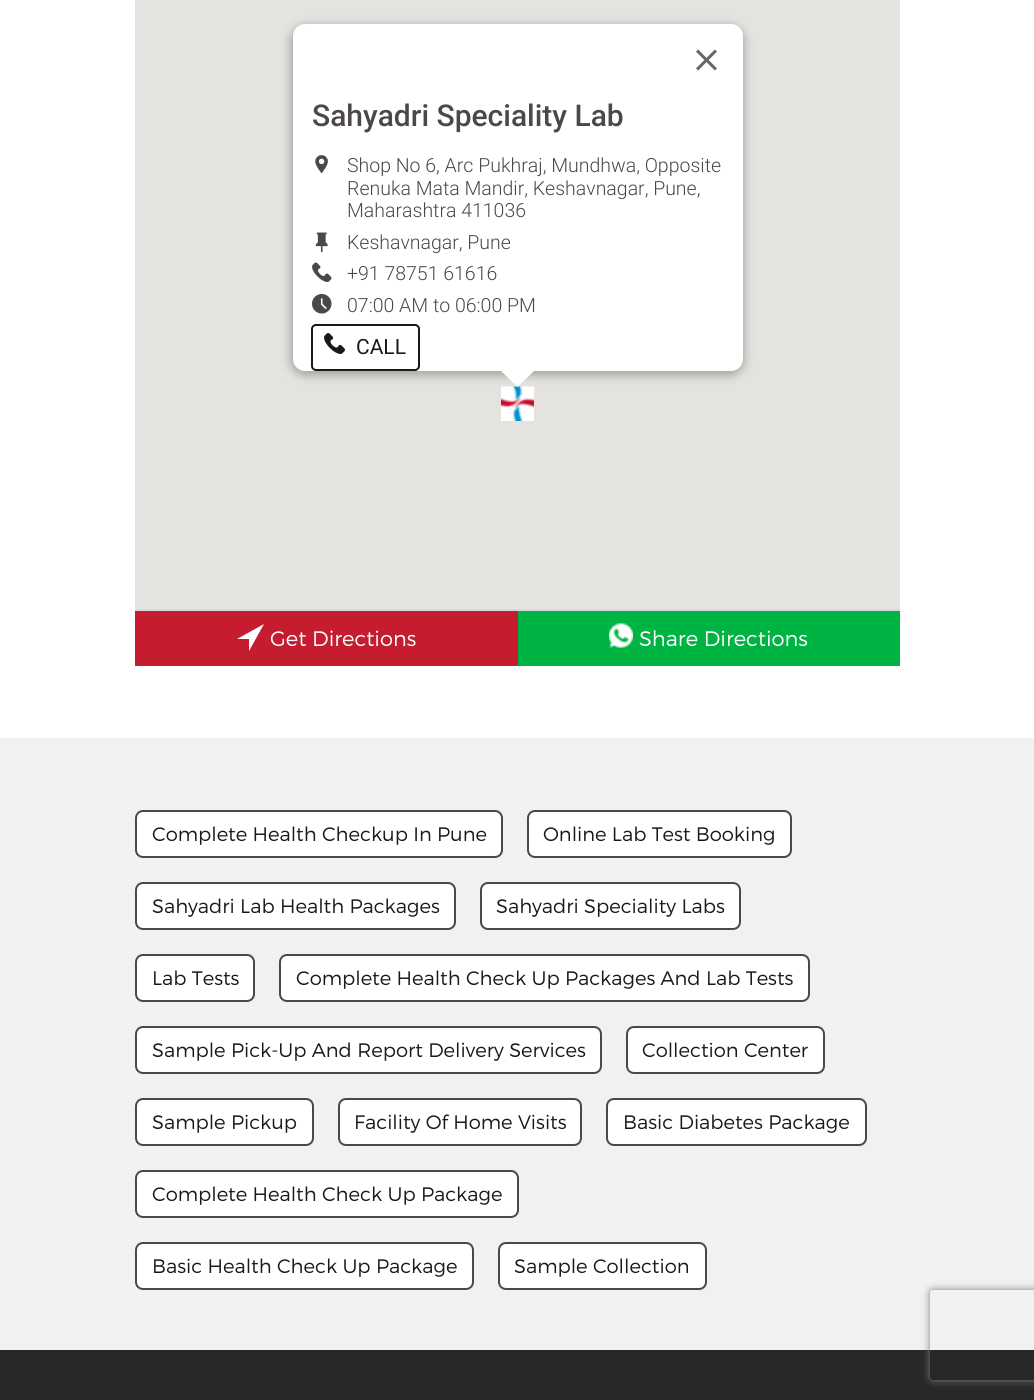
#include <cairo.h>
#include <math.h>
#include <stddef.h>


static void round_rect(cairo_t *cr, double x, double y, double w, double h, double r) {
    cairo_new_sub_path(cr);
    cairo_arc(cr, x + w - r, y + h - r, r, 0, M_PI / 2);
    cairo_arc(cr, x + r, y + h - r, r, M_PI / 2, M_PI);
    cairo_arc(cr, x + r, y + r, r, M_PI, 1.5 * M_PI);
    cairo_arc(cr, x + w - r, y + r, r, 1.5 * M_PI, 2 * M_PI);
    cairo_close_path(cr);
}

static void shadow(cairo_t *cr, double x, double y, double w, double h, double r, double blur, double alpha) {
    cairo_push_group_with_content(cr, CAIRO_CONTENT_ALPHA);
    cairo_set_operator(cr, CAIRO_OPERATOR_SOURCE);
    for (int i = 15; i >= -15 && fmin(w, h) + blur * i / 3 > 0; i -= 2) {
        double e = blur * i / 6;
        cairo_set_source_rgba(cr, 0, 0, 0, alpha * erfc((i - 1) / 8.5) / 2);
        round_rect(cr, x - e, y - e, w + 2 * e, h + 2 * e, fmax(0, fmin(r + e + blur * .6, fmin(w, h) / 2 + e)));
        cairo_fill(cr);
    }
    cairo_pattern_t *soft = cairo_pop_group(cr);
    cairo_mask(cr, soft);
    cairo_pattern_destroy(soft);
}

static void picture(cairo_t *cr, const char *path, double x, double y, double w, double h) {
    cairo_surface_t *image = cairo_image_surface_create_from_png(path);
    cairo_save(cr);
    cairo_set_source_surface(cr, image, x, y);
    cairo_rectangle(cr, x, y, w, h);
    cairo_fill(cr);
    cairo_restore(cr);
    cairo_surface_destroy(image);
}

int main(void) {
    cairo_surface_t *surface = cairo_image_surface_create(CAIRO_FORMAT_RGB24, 1034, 1400);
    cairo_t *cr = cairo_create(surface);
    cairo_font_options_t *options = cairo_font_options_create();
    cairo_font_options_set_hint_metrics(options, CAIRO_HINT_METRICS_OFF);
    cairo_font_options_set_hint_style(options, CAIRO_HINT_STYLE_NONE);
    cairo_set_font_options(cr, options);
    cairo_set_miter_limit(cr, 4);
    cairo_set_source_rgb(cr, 1, 1, 1);
    cairo_paint(cr);
    cairo_set_source_rgb(cr, 0.898, 0.89, 0.875);
    cairo_rectangle(cr, 135, 0, 765, 609);
    cairo_fill(cr);
    picture(cr, "img7.png", 501, 386, 33, 35);
    cairo_set_source_rgb(cr, 0, 0, 0);
    shadow(cr, 291, 26, 453, 349, 14, 5, 0.3);
    cairo_set_source_rgb(cr, 1, 1, 1);
    round_rect(cr, 293, 24, 450, 347, 12);
    cairo_fill(cr);
    picture(cr, "img1.png", 696, 49, 21, 22);
    cairo_select_font_face(cr, "Roboto Medium", CAIRO_FONT_SLANT_NORMAL, CAIRO_FONT_WEIGHT_NORMAL);
    cairo_set_font_size(cr, 30);
    cairo_set_source_rgb(cr, 0.302, 0.282, 0.282);
    cairo_move_to(cr, 312, 126);
    cairo_show_text(cr, "Sahyadri Speciality Lab");
    picture(cr, "img2.png", 315, 155, 13, 19);
    cairo_select_font_face(cr, "Roboto Light", CAIRO_FONT_SLANT_NORMAL, CAIRO_FONT_WEIGHT_NORMAL);
    cairo_set_font_size(cr, 19.5);
    cairo_move_to(cr, 347, 172);
    cairo_show_text(cr, "Shop No 6, Arc Pukhraj, Mundhwa, Opposite");
    cairo_move_to(cr, 347, 195);
    cairo_show_text(cr, "Renuka Mata Mandir, Keshavnagar, Pune,");
    cairo_move_to(cr, 347, 217);
    cairo_show_text(cr, "Maharashtra 411036");
    picture(cr, "img3.png", 315, 232, 13, 20);
    cairo_move_to(cr, 347, 249);
    cairo_show_text(cr, "Keshavnagar, Pune");
    picture(cr, "img4.png", 312, 262, 20, 20);
    cairo_move_to(cr, 347, 280);
    cairo_show_text(cr, "+91 78751 61616");
    picture(cr, "img5.png", 312, 294, 20, 20);
    cairo_move_to(cr, 347, 312);
    cairo_show_text(cr, "07:00 AM to 06:00 PM");
    round_rect(cr, 312, 325, 107, 45, 4);
    cairo_set_source_rgb(cr, 0.098, 0.098, 0.098);
    cairo_stroke(cr);
    picture(cr, "img6.png", 324, 333, 21, 21);
    cairo_select_font_face(cr, "Roboto", CAIRO_FONT_SLANT_NORMAL, CAIRO_FONT_WEIGHT_NORMAL);
    cairo_set_font_size(cr, 21);
    cairo_move_to(cr, 356, 354);
    cairo_show_text(cr, "CALL");
    cairo_set_source_rgb(cr, 1, 1, 1);
    cairo_new_path(cr);
    cairo_move_to(cr, 500, 369);
    cairo_line_to(cr, 500, 370);
    cairo_line_to(cr, 517.5, 387);
    cairo_line_to(cr, 536, 369);
    cairo_close_path(cr);
    cairo_fill(cr);
    cairo_set_source_rgb(cr, 0.847, 0.847, 0.847);
    cairo_rectangle(cr, 135, 609, 765, 2);
    cairo_fill(cr);
    cairo_set_source_rgb(cr, 0.773, 0.11, 0.184);
    cairo_rectangle(cr, 135, 611, 383, 55);
    cairo_fill(cr);
    cairo_set_source_rgb(cr, 1, 1, 1);
    cairo_new_path(cr);
    cairo_move_to(cr, 237, 639);
    cairo_line_to(cr, 264, 624);
    cairo_line_to(cr, 249, 651);
    cairo_line_to(cr, 249, 639);
    cairo_close_path(cr);
    cairo_fill(cr);
    cairo_select_font_face(cr, "Montserrat Light", CAIRO_FONT_SLANT_NORMAL, CAIRO_FONT_WEIGHT_NORMAL);
    cairo_move_to(cr, 270, 646);
    cairo_show_text(cr, "Get Directions");
    cairo_set_source_rgb(cr, 0, 0.706, 0.263);
    cairo_rectangle(cr, 518, 611, 382, 55);
    cairo_fill(cr);
    picture(cr, "img8.png", 609, 623, 24, 25);
    cairo_set_source_rgb(cr, 1, 1, 1);
    cairo_move_to(cr, 639, 646);
    cairo_show_text(cr, "Share Directions");
    cairo_set_source_rgb(cr, 0.945, 0.945, 0.945);
    cairo_rectangle(cr, 0, 738, 1034, 612);
    cairo_fill(cr);
    cairo_set_source_rgb(cr, 1, 1, 1);
    round_rect(cr, 136, 811, 366, 46, 7);
    cairo_fill_preserve(cr);
    cairo_set_source_rgb(cr, 0.302, 0.282, 0.282);
    cairo_stroke(cr);
    cairo_set_font_size(cr, 19.5);
    cairo_set_source_rgb(cr, 0.098, 0.098, 0.098);
    cairo_move_to(cr, 152, 841);
    cairo_show_text(cr, "Complete Health Checkup In Pune");
    cairo_set_source_rgb(cr, 1, 1, 1);
    round_rect(cr, 528, 811, 263, 46, 7);
    cairo_fill_preserve(cr);
    cairo_set_source_rgb(cr, 0.302, 0.282, 0.282);
    cairo_stroke(cr);
    cairo_set_source_rgb(cr, 0.098, 0.098, 0.098);
    cairo_move_to(cr, 543, 841);
    cairo_show_text(cr, "Online Lab Test Booking");
    cairo_set_source_rgb(cr, 1, 1, 1);
    round_rect(cr, 136, 883, 319, 46, 7);
    cairo_fill_preserve(cr);
    cairo_set_source_rgb(cr, 0.302, 0.282, 0.282);
    cairo_stroke(cr);
    cairo_set_source_rgb(cr, 0.098, 0.098, 0.098);
    cairo_move_to(cr, 152, 913);
    cairo_show_text(cr, "Sahyadri Lab Health Packages");
    cairo_set_source_rgb(cr, 1, 1, 1);
    round_rect(cr, 481, 883, 259, 46, 7);
    cairo_fill_preserve(cr);
    cairo_set_source_rgb(cr, 0.302, 0.282, 0.282);
    cairo_stroke(cr);
    cairo_set_source_rgb(cr, 0.098, 0.098, 0.098);
    cairo_move_to(cr, 496, 913);
    cairo_show_text(cr, "Sahyadri Speciality Labs");
    cairo_set_source_rgb(cr, 1, 1, 1);
    round_rect(cr, 136, 955, 118, 46, 7);
    cairo_fill_preserve(cr);
    cairo_set_source_rgb(cr, 0.302, 0.282, 0.282);
    cairo_stroke(cr);
    cairo_set_source_rgb(cr, 0.098, 0.098, 0.098);
    cairo_move_to(cr, 152, 985);
    cairo_show_text(cr, "Lab Tests");
    cairo_set_source_rgb(cr, 1, 1, 1);
    round_rect(cr, 280, 955, 529, 46, 7);
    cairo_fill_preserve(cr);
    cairo_set_source_rgb(cr, 0.302, 0.282, 0.282);
    cairo_stroke(cr);
    cairo_set_source_rgb(cr, 0.098, 0.098, 0.098);
    cairo_move_to(cr, 296, 985);
    cairo_show_text(cr, "Complete Health Check Up Packages And Lab Tests");
    cairo_set_source_rgb(cr, 1, 1, 1);
    round_rect(cr, 136, 1027, 465, 46, 7);
    cairo_fill_preserve(cr);
    cairo_set_source_rgb(cr, 0.302, 0.282, 0.282);
    cairo_stroke(cr);
    cairo_set_source_rgb(cr, 0.098, 0.098, 0.098);
    cairo_move_to(cr, 152, 1057);
    cairo_show_text(cr, "Sample Pick-Up And Report Delivery Services");
    cairo_set_source_rgb(cr, 1, 1, 1);
    round_rect(cr, 627, 1027, 197, 46, 7);
    cairo_fill_preserve(cr);
    cairo_set_source_rgb(cr, 0.302, 0.282, 0.282);
    cairo_stroke(cr);
    cairo_set_source_rgb(cr, 0.098, 0.098, 0.098);
    cairo_move_to(cr, 642, 1057);
    cairo_show_text(cr, "Collection Center");
    cairo_set_source_rgb(cr, 1, 1, 1);
    round_rect(cr, 136, 1099, 177, 46, 7);
    cairo_fill_preserve(cr);
    cairo_set_source_rgb(cr, 0.302, 0.282, 0.282);
    cairo_stroke(cr);
    cairo_set_source_rgb(cr, 0.098, 0.098, 0.098);
    cairo_move_to(cr, 152, 1129);
    cairo_show_text(cr, "Sample Pickup");
    cairo_set_source_rgb(cr, 1, 1, 1);
    round_rect(cr, 339, 1099, 242, 46, 7);
    cairo_fill_preserve(cr);
    cairo_set_source_rgb(cr, 0.302, 0.282, 0.282);
    cairo_stroke(cr);
    cairo_set_source_rgb(cr, 0.098, 0.098, 0.098);
    cairo_move_to(cr, 354, 1129);
    cairo_show_text(cr, "Facility Of Home Visits");
    cairo_set_source_rgb(cr, 1, 1, 1);
    round_rect(cr, 607, 1099, 259, 46, 7);
    cairo_fill_preserve(cr);
    cairo_set_source_rgb(cr, 0.302, 0.282, 0.282);
    cairo_stroke(cr);
    cairo_set_source_rgb(cr, 0.098, 0.098, 0.098);
    cairo_move_to(cr, 623, 1129);
    cairo_show_text(cr, "Basic Diabetes Package");
    cairo_set_source_rgb(cr, 1, 1, 1);
    round_rect(cr, 136, 1171, 382, 46, 7);
    cairo_fill_preserve(cr);
    cairo_set_source_rgb(cr, 0.302, 0.282, 0.282);
    cairo_stroke(cr);
    cairo_set_source_rgb(cr, 0.098, 0.098, 0.098);
    cairo_move_to(cr, 152, 1201);
    cairo_show_text(cr, "Complete Health Check Up Package");
    cairo_set_source_rgb(cr, 1, 1, 1);
    round_rect(cr, 136, 1243, 337, 46, 7);
    cairo_fill_preserve(cr);
    cairo_set_source_rgb(cr, 0.302, 0.282, 0.282);
    cairo_stroke(cr);
    cairo_set_source_rgb(cr, 0.098, 0.098, 0.098);
    cairo_move_to(cr, 152, 1273);
    cairo_show_text(cr, "Basic Health Check Up Package");
    cairo_set_source_rgb(cr, 1, 1, 1);
    round_rect(cr, 499, 1243, 207, 46, 7);
    cairo_fill_preserve(cr);
    cairo_set_source_rgb(cr, 0.302, 0.282, 0.282);
    cairo_stroke(cr);
    cairo_set_source_rgb(cr, 0.098, 0.098, 0.098);
    cairo_move_to(cr, 514, 1273);
    cairo_show_text(cr, "Sample Collection");
    cairo_set_source_rgb(cr, 0.161, 0.157, 0.157);
    cairo_rectangle(cr, 0, 1350, 1034, 50);
    cairo_fill(cr);
    cairo_save(cr);
    cairo_set_fill_rule(cr, CAIRO_FILL_RULE_EVEN_ODD);
    cairo_new_path(cr);
    cairo_move_to(cr, 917, 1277);
    cairo_line_to(cr, 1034, 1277);
    cairo_line_to(cr, 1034, 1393);
    cairo_line_to(cr, 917, 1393);
    cairo_close_path(cr);
    cairo_move_to(cr, 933, 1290);
    cairo_line_to(cr, 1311, 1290);
    cairo_curve_to(cr, 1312.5, 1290, 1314, 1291.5, 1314, 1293);
    cairo_line_to(cr, 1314, 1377);
    cairo_curve_to(cr, 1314, 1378.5, 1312.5, 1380, 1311, 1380);
    cairo_line_to(cr, 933, 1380);
    cairo_curve_to(cr, 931.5, 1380, 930, 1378.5, 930, 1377);
    cairo_line_to(cr, 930, 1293);
    cairo_curve_to(cr, 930, 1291.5, 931.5, 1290, 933, 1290);
    cairo_close_path(cr);
    cairo_clip(cr);
    cairo_set_source_rgb(cr, 0.502, 0.502, 0.502);
    shadow(cr, 930, 1290, 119, 90, 3, 4, 1);
    cairo_restore(cr);
    cairo_surface_write_to_png(surface, "page.png");
    cairo_font_options_destroy(options);
    cairo_destroy(cr);
    cairo_surface_destroy(surface);
    return 0;
}
